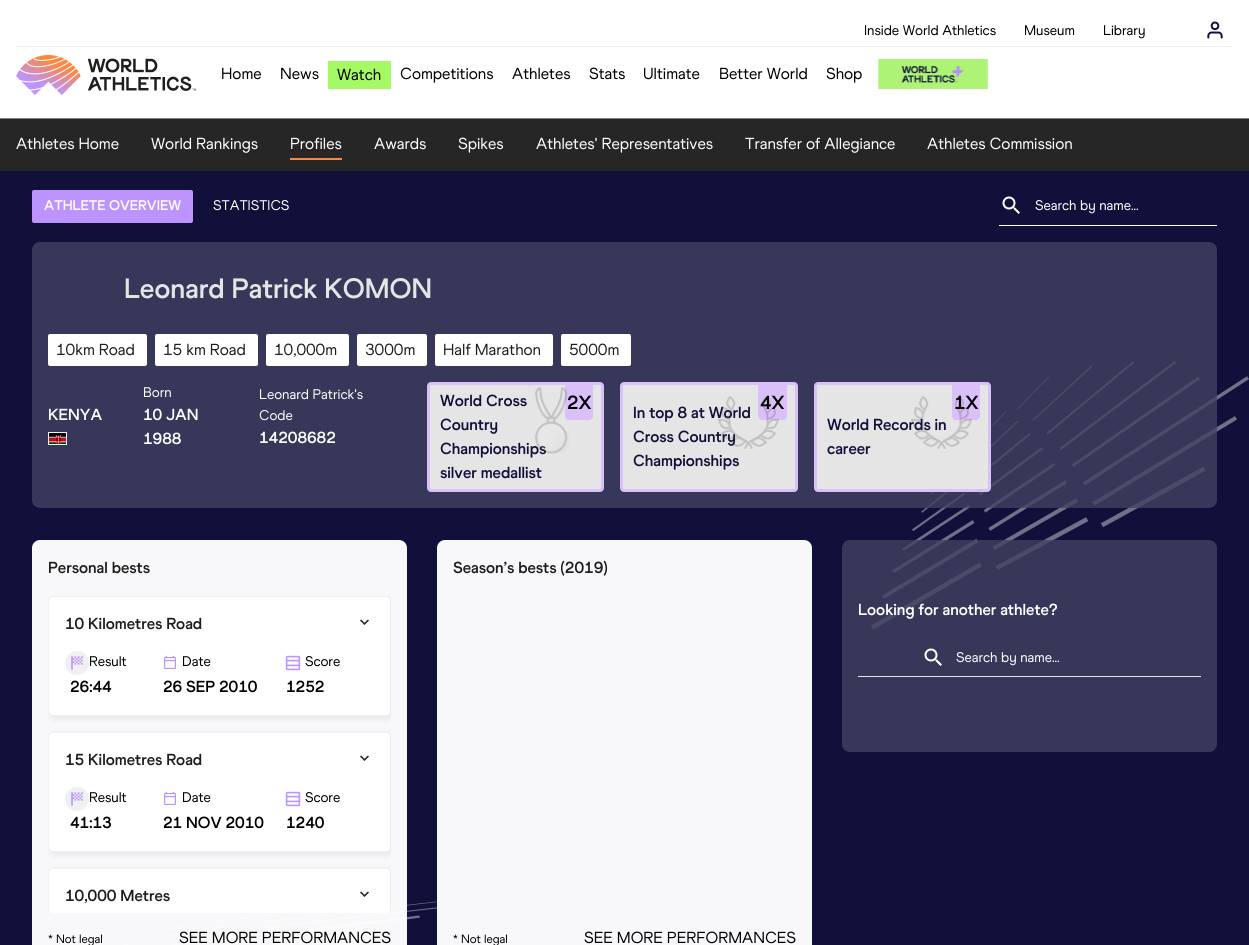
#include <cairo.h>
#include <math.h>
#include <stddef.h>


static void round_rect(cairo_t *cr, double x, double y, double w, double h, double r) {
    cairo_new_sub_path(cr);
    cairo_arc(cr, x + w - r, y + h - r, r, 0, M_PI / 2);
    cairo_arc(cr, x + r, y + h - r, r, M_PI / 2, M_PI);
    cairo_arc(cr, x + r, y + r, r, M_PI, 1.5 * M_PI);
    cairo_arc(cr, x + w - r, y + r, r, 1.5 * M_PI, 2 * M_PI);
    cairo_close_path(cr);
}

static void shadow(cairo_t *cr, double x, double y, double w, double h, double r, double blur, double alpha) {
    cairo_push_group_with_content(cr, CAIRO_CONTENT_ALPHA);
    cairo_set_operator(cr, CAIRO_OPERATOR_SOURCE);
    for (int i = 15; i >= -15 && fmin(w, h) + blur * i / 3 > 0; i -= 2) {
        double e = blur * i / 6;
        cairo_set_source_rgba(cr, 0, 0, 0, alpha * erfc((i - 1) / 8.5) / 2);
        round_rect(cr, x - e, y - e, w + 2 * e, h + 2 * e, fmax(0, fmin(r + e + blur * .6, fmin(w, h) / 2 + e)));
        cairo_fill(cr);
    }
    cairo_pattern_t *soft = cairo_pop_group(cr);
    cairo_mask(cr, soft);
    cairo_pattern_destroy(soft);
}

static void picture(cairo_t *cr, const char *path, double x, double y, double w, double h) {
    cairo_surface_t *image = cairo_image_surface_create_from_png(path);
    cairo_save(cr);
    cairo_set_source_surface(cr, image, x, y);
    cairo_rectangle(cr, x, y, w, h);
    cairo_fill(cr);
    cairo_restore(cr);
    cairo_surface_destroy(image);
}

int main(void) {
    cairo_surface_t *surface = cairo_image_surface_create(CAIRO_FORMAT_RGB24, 1249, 945);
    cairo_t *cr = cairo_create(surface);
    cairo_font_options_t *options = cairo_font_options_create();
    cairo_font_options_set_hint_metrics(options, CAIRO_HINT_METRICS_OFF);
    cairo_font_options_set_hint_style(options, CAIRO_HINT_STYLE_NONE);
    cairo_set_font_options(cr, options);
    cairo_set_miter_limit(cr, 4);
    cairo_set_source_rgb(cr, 1, 1, 1);
    cairo_paint(cr);
    cairo_set_source_rgb(cr, 0.941, 0.941, 0.941);
    cairo_rectangle(cr, 16, 46, 1217, 1);
    cairo_fill(cr);
    cairo_select_font_face(cr, "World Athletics", CAIRO_FONT_SLANT_NORMAL, CAIRO_FONT_WEIGHT_NORMAL);
    cairo_set_font_size(cr, 14);
    cairo_set_source_rgb(cr, 0, 0, 0);
    cairo_move_to(cr, 864, 35);
    cairo_show_text(cr, "Inside World Athletics");
    cairo_move_to(cr, 1024, 35);
    cairo_show_text(cr, "Museum");
    cairo_move_to(cr, 1103, 35);
    cairo_show_text(cr, "Library");
    picture(cr, "img1.png", 1207, 21, 16, 18);
    picture(cr, "img2.png", 16, 55, 180, 40);
    cairo_set_font_size(cr, 16);
    cairo_move_to(cr, 221, 79);
    cairo_show_text(cr, "Home");
    cairo_move_to(cr, 280, 79);
    cairo_show_text(cr, "News");
    cairo_set_source_rgb(cr, 0.647, 0.98, 0.392);
    cairo_rectangle(cr, 328, 61, 63, 28);
    cairo_fill(cr);
    cairo_set_source_rgb(cr, 0, 0, 0);
    cairo_move_to(cr, 337, 80);
    cairo_show_text(cr, "Watch");
    cairo_move_to(cr, 400, 79);
    cairo_show_text(cr, "Competitions");
    cairo_move_to(cr, 512, 79);
    cairo_show_text(cr, "Athletes");
    cairo_move_to(cr, 589, 79);
    cairo_show_text(cr, "Stats");
    cairo_move_to(cr, 643, 79);
    cairo_show_text(cr, "Ultimate");
    cairo_move_to(cr, 719, 79);
    cairo_show_text(cr, "Better World");
    cairo_move_to(cr, 826, 79);
    cairo_show_text(cr, "Shop");
    picture(cr, "img3.png", 878, 59, 110, 30);
    cairo_set_source_rgb(cr, 0.149, 0.149, 0.149);
    cairo_rectangle(cr, 0, 119, 1249, 52);
    cairo_fill(cr);
    cairo_set_source_rgb(cr, 0.506, 0.506, 0.506);
    cairo_rectangle(cr, 0, 118, 1249, 1);
    cairo_fill(cr);
    cairo_set_source_rgb(cr, 1, 1, 1);
    cairo_move_to(cr, 16, 149);
    cairo_show_text(cr, "Athletes Home");
    cairo_move_to(cr, 151, 149);
    cairo_show_text(cr, "World Rankings");
    cairo_set_source_rgb(cr, 1, 0.529, 0.235);
    cairo_rectangle(cr, 290, 158, 52, 2);
    cairo_fill(cr);
    cairo_set_source_rgb(cr, 1, 1, 1);
    cairo_move_to(cr, 290, 149);
    cairo_show_text(cr, "Profiles");
    cairo_move_to(cr, 374, 149);
    cairo_show_text(cr, "Awards");
    cairo_move_to(cr, 458, 149);
    cairo_show_text(cr, "Spikes");
    cairo_move_to(cr, 536, 149);
    cairo_show_text(cr, "Athletes' Representatives");
    cairo_move_to(cr, 745, 149);
    cairo_show_text(cr, "Transfer of Allegiance");
    cairo_move_to(cr, 927, 149);
    cairo_show_text(cr, "Athletes Commission");
    picture(cr, "img4.png", 0, 171, 1249, 774);
    cairo_set_source_rgb(cr, 0.741, 0.58, 1);
    round_rect(cr, 32, 190, 161, 33, 2);
    cairo_fill(cr);
    cairo_select_font_face(cr, "World Athletics", CAIRO_FONT_SLANT_NORMAL, CAIRO_FONT_WEIGHT_BOLD);
    cairo_set_font_size(cr, 14);
    cairo_set_source_rgb(cr, 1, 1, 1);
    cairo_move_to(cr, 44, 210);
    cairo_show_text(cr, "ATHLETE OVERVIEW");
    cairo_select_font_face(cr, "World Athletics", CAIRO_FONT_SLANT_NORMAL, CAIRO_FONT_WEIGHT_NORMAL);
    cairo_move_to(cr, 213, 210);
    cairo_show_text(cr, "STATISTICS");
    picture(cr, "img5.png", 1002, 196, 18, 18);
    cairo_move_to(cr, 1035, 210);
    cairo_show_text(cr, "Search by name...");
    cairo_rectangle(cr, 999, 225, 218, 1);
    cairo_fill(cr);
    cairo_set_source_rgba(cr, 0.255, 0.255, 0.384, 0.8);
    round_rect(cr, 32, 242, 1185, 266, 8);
    cairo_fill(cr);
    cairo_select_font_face(cr, "World Athletics", CAIRO_FONT_SLANT_NORMAL, CAIRO_FONT_WEIGHT_BOLD);
    cairo_set_font_size(cr, 28);
    cairo_set_source_rgb(cr, 0.898, 0.898, 0.898);
    cairo_move_to(cr, 124, 298);
    cairo_show_text(cr, "Leonard Patrick KOMON");
    cairo_set_source_rgb(cr, 1, 1, 1);
    round_rect(cr, 48, 334, 99, 32, 2);
    cairo_fill(cr);
    cairo_select_font_face(cr, "World Athletics", CAIRO_FONT_SLANT_NORMAL, CAIRO_FONT_WEIGHT_NORMAL);
    cairo_set_font_size(cr, 16);
    cairo_set_source_rgb(cr, 0.118, 0.118, 0.118);
    cairo_move_to(cr, 56, 355);
    cairo_show_text(cr, "10km Road");
    cairo_set_source_rgb(cr, 1, 1, 1);
    round_rect(cr, 155, 334, 103, 32, 2);
    cairo_fill(cr);
    cairo_set_source_rgb(cr, 0.118, 0.118, 0.118);
    cairo_move_to(cr, 163, 355);
    cairo_show_text(cr, "15 km Road");
    cairo_set_source_rgb(cr, 1, 1, 1);
    round_rect(cr, 266, 334, 83, 32, 2);
    cairo_fill(cr);
    cairo_set_source_rgb(cr, 0.118, 0.118, 0.118);
    cairo_move_to(cr, 274, 355);
    cairo_show_text(cr, "10,000m");
    cairo_set_source_rgb(cr, 1, 1, 1);
    round_rect(cr, 357, 334, 70, 32, 2);
    cairo_fill(cr);
    cairo_set_source_rgb(cr, 0.118, 0.118, 0.118);
    cairo_move_to(cr, 365, 355);
    cairo_show_text(cr, "3000m");
    cairo_set_source_rgb(cr, 1, 1, 1);
    round_rect(cr, 435, 334, 118, 32, 2);
    cairo_fill(cr);
    cairo_set_source_rgb(cr, 0.118, 0.118, 0.118);
    cairo_move_to(cr, 443, 355);
    cairo_show_text(cr, "Half Marathon");
    cairo_set_source_rgb(cr, 1, 1, 1);
    round_rect(cr, 561, 334, 70, 32, 2);
    cairo_fill(cr);
    cairo_set_source_rgb(cr, 0.118, 0.118, 0.118);
    cairo_move_to(cr, 569, 355);
    cairo_show_text(cr, "5000m");
    cairo_select_font_face(cr, "World Athletics", CAIRO_FONT_SLANT_NORMAL, CAIRO_FONT_WEIGHT_BOLD);
    cairo_set_source_rgb(cr, 1, 1, 1);
    cairo_move_to(cr, 48, 420);
    cairo_show_text(cr, "KENYA");
    picture(cr, "img6.png", 49, 433, 17, 11);
    cairo_rectangle(cr, 48.5, 432.5, 18, 12);
    cairo_set_source_rgb(cr, 0.933, 0.945, 0.957);
    cairo_set_line_width(cr, 1);
    cairo_stroke(cr);
    cairo_select_font_face(cr, "World Athletics", CAIRO_FONT_SLANT_NORMAL, CAIRO_FONT_WEIGHT_NORMAL);
    cairo_set_font_size(cr, 14);
    cairo_set_source_rgb(cr, 1, 1, 1);
    cairo_move_to(cr, 143, 397);
    cairo_show_text(cr, "Born");
    cairo_select_font_face(cr, "World Athletics", CAIRO_FONT_SLANT_NORMAL, CAIRO_FONT_WEIGHT_BOLD);
    cairo_set_font_size(cr, 16);
    cairo_move_to(cr, 143, 420);
    cairo_show_text(cr, "10 JAN");
    cairo_move_to(cr, 143, 444);
    cairo_show_text(cr, "1988");
    cairo_select_font_face(cr, "World Athletics", CAIRO_FONT_SLANT_NORMAL, CAIRO_FONT_WEIGHT_NORMAL);
    cairo_set_font_size(cr, 14);
    cairo_move_to(cr, 259, 399);
    cairo_show_text(cr, "Leonard Patrick's");
    cairo_move_to(cr, 259, 420);
    cairo_show_text(cr, "Code");
    cairo_select_font_face(cr, "World Athletics", CAIRO_FONT_SLANT_NORMAL, CAIRO_FONT_WEIGHT_BOLD);
    cairo_set_font_size(cr, 16);
    cairo_move_to(cr, 259, 443);
    cairo_show_text(cr, "14208682");
    cairo_set_source_rgb(cr, 0.898, 0.898, 0.898);
    round_rect(cr, 428.5, 383.5, 174, 107, 2.5);
    cairo_fill_preserve(cr);
    cairo_set_source_rgb(cr, 0.851, 0.753, 0.969);
    cairo_set_line_width(cr, 3);
    cairo_stroke(cr);
    cairo_set_source_rgb(cr, 0.067, 0.063, 0.227);
    cairo_move_to(cr, 440, 406);
    cairo_show_text(cr, "World Cross");
    cairo_move_to(cr, 440, 430);
    cairo_show_text(cr, "Country");
    cairo_move_to(cr, 440, 454);
    cairo_show_text(cr, "Championships");
    cairo_move_to(cr, 440, 478);
    cairo_show_text(cr, "silver medallist");
    cairo_set_source_rgb(cr, 0.851, 0.753, 0.969);
    cairo_new_path(cr);
    cairo_move_to(cr, 565, 385);
    cairo_line_to(cr, 593, 385);
    cairo_line_to(cr, 593, 416);
    cairo_curve_to(cr, 593, 418, 591, 420, 589, 420);
    cairo_line_to(cr, 569, 420);
    cairo_curve_to(cr, 567, 420, 565, 418, 565, 416);
    cairo_close_path(cr);
    cairo_fill(cr);
    cairo_set_font_size(cr, 19);
    cairo_set_source_rgb(cr, 0, 0, 0);
    cairo_move_to(cr, 567, 409);
    cairo_show_text(cr, "2X");
    picture(cr, "img7.png", 535, 387, 34, 67);
    cairo_set_source_rgb(cr, 0.898, 0.898, 0.898);
    round_rect(cr, 621.5, 383.5, 175, 107, 2.5);
    cairo_fill_preserve(cr);
    cairo_set_source_rgb(cr, 0.851, 0.753, 0.969);
    cairo_stroke(cr);
    cairo_new_path(cr);
    cairo_move_to(cr, 758, 385);
    cairo_line_to(cr, 787, 385);
    cairo_line_to(cr, 787, 416);
    cairo_curve_to(cr, 787, 418, 785, 420, 783, 420);
    cairo_line_to(cr, 762, 420);
    cairo_curve_to(cr, 760, 420, 758, 418, 758, 416);
    cairo_close_path(cr);
    cairo_fill(cr);
    cairo_set_source_rgb(cr, 0, 0, 0);
    cairo_move_to(cr, 760, 409);
    cairo_show_text(cr, "4X");
    cairo_set_font_size(cr, 16);
    cairo_set_source_rgb(cr, 0.067, 0.063, 0.227);
    cairo_move_to(cr, 633, 418);
    cairo_show_text(cr, "In top 8 at World");
    cairo_move_to(cr, 633, 442);
    cairo_show_text(cr, "Cross Country");
    picture(cr, "img8.png", 718, 396, 61, 53);
    cairo_move_to(cr, 633, 466);
    cairo_show_text(cr, "Championships");
    cairo_set_source_rgb(cr, 0.898, 0.898, 0.898);
    round_rect(cr, 815.5, 383.5, 174, 107, 2.5);
    cairo_fill_preserve(cr);
    cairo_set_source_rgb(cr, 0.851, 0.753, 0.969);
    cairo_stroke(cr);
    cairo_new_path(cr);
    cairo_move_to(cr, 952, 385);
    cairo_line_to(cr, 980, 385);
    cairo_line_to(cr, 980, 416);
    cairo_curve_to(cr, 980, 418, 978, 420, 976, 420);
    cairo_line_to(cr, 956, 420);
    cairo_curve_to(cr, 954, 420, 952, 418, 952, 416);
    cairo_close_path(cr);
    cairo_fill(cr);
    cairo_set_font_size(cr, 19);
    cairo_set_source_rgb(cr, 0, 0, 0);
    cairo_move_to(cr, 954, 409);
    cairo_show_text(cr, "1X");
    cairo_set_font_size(cr, 16);
    cairo_set_source_rgb(cr, 0.067, 0.063, 0.227);
    cairo_move_to(cr, 827, 430);
    cairo_show_text(cr, "World Records in");
    picture(cr, "img9.png", 911, 396, 61, 53);
    cairo_move_to(cr, 827, 454);
    cairo_show_text(cr, "career");
    cairo_set_source_rgba(cr, 1, 1, 1, 0.97);
    round_rect(cr, 32, 540, 375, 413, 8);
    cairo_fill(cr);
    cairo_set_source_rgb(cr, 0.118, 0.118, 0.118);
    cairo_move_to(cr, 48, 573);
    cairo_show_text(cr, "Personal bests");
    cairo_save(cr);
    cairo_rectangle(cr, 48, 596, 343, 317);
    cairo_clip(cr);
    cairo_set_source_rgb(cr, 0.067, 0.063, 0.227);
    shadow(cr, 50, 598, 343, 120, 5, 3.5, 0.1);
    cairo_restore(cr);
    cairo_set_source_rgb(cr, 1, 1, 1);
    round_rect(cr, 48.5, 596.5, 342, 119, 4.5);
    cairo_fill_preserve(cr);
    cairo_set_source_rgb(cr, 0.941, 0.941, 0.941);
    cairo_set_line_width(cr, 1);
    cairo_stroke(cr);
    cairo_set_source_rgb(cr, 0.118, 0.118, 0.118);
    cairo_move_to(cr, 65, 629);
    cairo_show_text(cr, "10 Kilometres Road");
    picture(cr, "img10.png", 360, 619, 9, 6);
    picture(cr, "img11.png", 65, 651, 24, 24);
    cairo_select_font_face(cr, "World Athletics", CAIRO_FONT_SLANT_NORMAL, CAIRO_FONT_WEIGHT_NORMAL);
    cairo_set_font_size(cr, 14);
    cairo_set_source_rgb(cr, 0, 0, 0);
    cairo_move_to(cr, 89, 666);
    cairo_show_text(cr, "Result");
    cairo_select_font_face(cr, "World Athletics", CAIRO_FONT_SLANT_NORMAL, CAIRO_FONT_WEIGHT_BOLD);
    cairo_set_font_size(cr, 16);
    cairo_move_to(cr, 70, 692);
    cairo_show_text(cr, "26:44");
    picture(cr, "img12.png", 164, 655, 12, 14);
    cairo_select_font_face(cr, "World Athletics", CAIRO_FONT_SLANT_NORMAL, CAIRO_FONT_WEIGHT_NORMAL);
    cairo_set_font_size(cr, 14);
    cairo_move_to(cr, 182, 666);
    cairo_show_text(cr, "Date");
    cairo_select_font_face(cr, "World Athletics", CAIRO_FONT_SLANT_NORMAL, CAIRO_FONT_WEIGHT_BOLD);
    cairo_set_font_size(cr, 16);
    cairo_move_to(cr, 163, 692);
    cairo_show_text(cr, "26 SEP 2010");
    picture(cr, "img13.png", 285, 655, 16, 16);
    cairo_select_font_face(cr, "World Athletics", CAIRO_FONT_SLANT_NORMAL, CAIRO_FONT_WEIGHT_NORMAL);
    cairo_set_font_size(cr, 14);
    cairo_move_to(cr, 305, 666);
    cairo_show_text(cr, "Score");
    cairo_select_font_face(cr, "World Athletics", CAIRO_FONT_SLANT_NORMAL, CAIRO_FONT_WEIGHT_BOLD);
    cairo_set_font_size(cr, 16);
    cairo_move_to(cr, 286, 692);
    cairo_show_text(cr, "1252");
    cairo_save(cr);
    cairo_rectangle(cr, 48, 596, 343, 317);
    cairo_clip(cr);
    cairo_set_source_rgb(cr, 0.067, 0.063, 0.227);
    shadow(cr, 50, 734, 343, 120, 5, 3.5, 0.1);
    cairo_restore(cr);
    cairo_set_source_rgb(cr, 1, 1, 1);
    round_rect(cr, 48.5, 732.5, 342, 119, 4.5);
    cairo_fill_preserve(cr);
    cairo_set_source_rgb(cr, 0.941, 0.941, 0.941);
    cairo_stroke(cr);
    cairo_set_source_rgb(cr, 0.118, 0.118, 0.118);
    cairo_move_to(cr, 65, 765);
    cairo_show_text(cr, "15 Kilometres Road");
    picture(cr, "img10.png", 360, 755, 9, 6);
    picture(cr, "img11.png", 65, 787, 24, 24);
    cairo_select_font_face(cr, "World Athletics", CAIRO_FONT_SLANT_NORMAL, CAIRO_FONT_WEIGHT_NORMAL);
    cairo_set_font_size(cr, 14);
    cairo_set_source_rgb(cr, 0, 0, 0);
    cairo_move_to(cr, 89, 802);
    cairo_show_text(cr, "Result");
    cairo_select_font_face(cr, "World Athletics", CAIRO_FONT_SLANT_NORMAL, CAIRO_FONT_WEIGHT_BOLD);
    cairo_set_font_size(cr, 16);
    cairo_move_to(cr, 70, 828);
    cairo_show_text(cr, "41:13");
    picture(cr, "img12.png", 164, 791, 12, 14);
    cairo_select_font_face(cr, "World Athletics", CAIRO_FONT_SLANT_NORMAL, CAIRO_FONT_WEIGHT_NORMAL);
    cairo_set_font_size(cr, 14);
    cairo_move_to(cr, 182, 802);
    cairo_show_text(cr, "Date");
    cairo_select_font_face(cr, "World Athletics", CAIRO_FONT_SLANT_NORMAL, CAIRO_FONT_WEIGHT_BOLD);
    cairo_set_font_size(cr, 16);
    cairo_move_to(cr, 163, 828);
    cairo_show_text(cr, "21 NOV 2010");
    picture(cr, "img13.png", 285, 791, 16, 16);
    cairo_select_font_face(cr, "World Athletics", CAIRO_FONT_SLANT_NORMAL, CAIRO_FONT_WEIGHT_NORMAL);
    cairo_set_font_size(cr, 14);
    cairo_move_to(cr, 305, 802);
    cairo_show_text(cr, "Score");
    cairo_select_font_face(cr, "World Athletics", CAIRO_FONT_SLANT_NORMAL, CAIRO_FONT_WEIGHT_BOLD);
    cairo_set_font_size(cr, 16);
    cairo_move_to(cr, 286, 828);
    cairo_show_text(cr, "1240");
    cairo_save(cr);
    cairo_rectangle(cr, 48, 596, 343, 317);
    cairo_clip(cr);
    cairo_set_source_rgb(cr, 0.067, 0.063, 0.227);
    shadow(cr, 50, 870, 343, 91, 5, 3.5, 0.1);
    cairo_restore(cr);
    cairo_set_source_rgb(cr, 1, 1, 1);
    cairo_new_path(cr);
    cairo_move_to(cr, 53, 868);
    cairo_line_to(cr, 386, 868);
    cairo_curve_to(cr, 389, 868, 391, 870, 391, 873);
    cairo_line_to(cr, 391, 913);
    cairo_line_to(cr, 48, 913);
    cairo_line_to(cr, 48, 873);
    cairo_curve_to(cr, 48, 870, 50, 868, 53, 868);
    cairo_close_path(cr);
    cairo_fill(cr);
    cairo_save(cr);
    cairo_rectangle(cr, 48, 596, 343, 317);
    cairo_clip(cr);
    cairo_set_source_rgb(cr, 0.941, 0.941, 0.941);
    cairo_new_path(cr);
    cairo_move_to(cr, 53, 868);
    cairo_curve_to(cr, 50, 868, 48, 870, 48, 873);
    cairo_line_to(cr, 48, 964);
    cairo_line_to(cr, 49, 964);
    cairo_line_to(cr, 49, 873);
    cairo_curve_to(cr, 49, 871, 51, 869, 53, 869);
    cairo_line_to(cr, 386, 869);
    cairo_curve_to(cr, 388, 869, 390, 871, 390, 873);
    cairo_line_to(cr, 390, 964);
    cairo_line_to(cr, 391, 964);
    cairo_line_to(cr, 391, 873);
    cairo_curve_to(cr, 391, 870, 389, 868, 386, 868);
    cairo_close_path(cr);
    cairo_fill(cr);
    cairo_restore(cr);
    cairo_set_source_rgb(cr, 0.118, 0.118, 0.118);
    cairo_move_to(cr, 65, 901);
    cairo_show_text(cr, "10,000 Metres");
    picture(cr, "img10.png", 360, 891, 9, 6);
    cairo_select_font_face(cr, "World Athletics", CAIRO_FONT_SLANT_NORMAL, CAIRO_FONT_WEIGHT_NORMAL);
    cairo_set_font_size(cr, 12);
    cairo_set_source_rgb(cr, 0, 0, 0);
    cairo_move_to(cr, 48, 943);
    cairo_show_text(cr, "* Not legal");
    cairo_set_font_size(cr, 16);
    cairo_move_to(cr, 179, 943);
    cairo_show_text(cr, "SEE MORE PERFORMANCES");
    cairo_set_source_rgba(cr, 1, 1, 1, 0.97);
    round_rect(cr, 437, 540, 375, 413, 8);
    cairo_fill(cr);
    cairo_select_font_face(cr, "World Athletics", CAIRO_FONT_SLANT_NORMAL, CAIRO_FONT_WEIGHT_BOLD);
    cairo_set_source_rgb(cr, 0.118, 0.118, 0.118);
    cairo_move_to(cr, 453, 573);
    cairo_show_text(cr, "Season’s bests (2019)");
    cairo_select_font_face(cr, "World Athletics", CAIRO_FONT_SLANT_NORMAL, CAIRO_FONT_WEIGHT_NORMAL);
    cairo_set_font_size(cr, 12);
    cairo_set_source_rgb(cr, 0, 0, 0);
    cairo_move_to(cr, 453, 943);
    cairo_show_text(cr, "* Not legal");
    cairo_set_font_size(cr, 16);
    cairo_move_to(cr, 584, 943);
    cairo_show_text(cr, "SEE MORE PERFORMANCES");
    cairo_set_source_rgba(cr, 0.255, 0.255, 0.384, 0.8);
    round_rect(cr, 842, 540, 375, 212, 8);
    cairo_fill(cr);
    cairo_select_font_face(cr, "World Athletics", CAIRO_FONT_SLANT_NORMAL, CAIRO_FONT_WEIGHT_BOLD);
    cairo_set_source_rgb(cr, 1, 1, 1);
    cairo_move_to(cr, 858, 615);
    cairo_show_text(cr, "Looking for another athlete?");
    picture(cr, "img14.png", 924, 648, 18, 18);
    cairo_select_font_face(cr, "World Athletics", CAIRO_FONT_SLANT_NORMAL, CAIRO_FONT_WEIGHT_NORMAL);
    cairo_set_font_size(cr, 14);
    cairo_move_to(cr, 956, 662);
    cairo_show_text(cr, "Search by name...");
    cairo_set_source_rgb(cr, 0.898, 0.898, 0.898);
    cairo_rectangle(cr, 858, 676, 343, 1);
    cairo_fill(cr);
    cairo_surface_write_to_png(surface, "page.png");
    cairo_font_options_destroy(options);
    cairo_destroy(cr);
    cairo_surface_destroy(surface);
    return 0;
}
